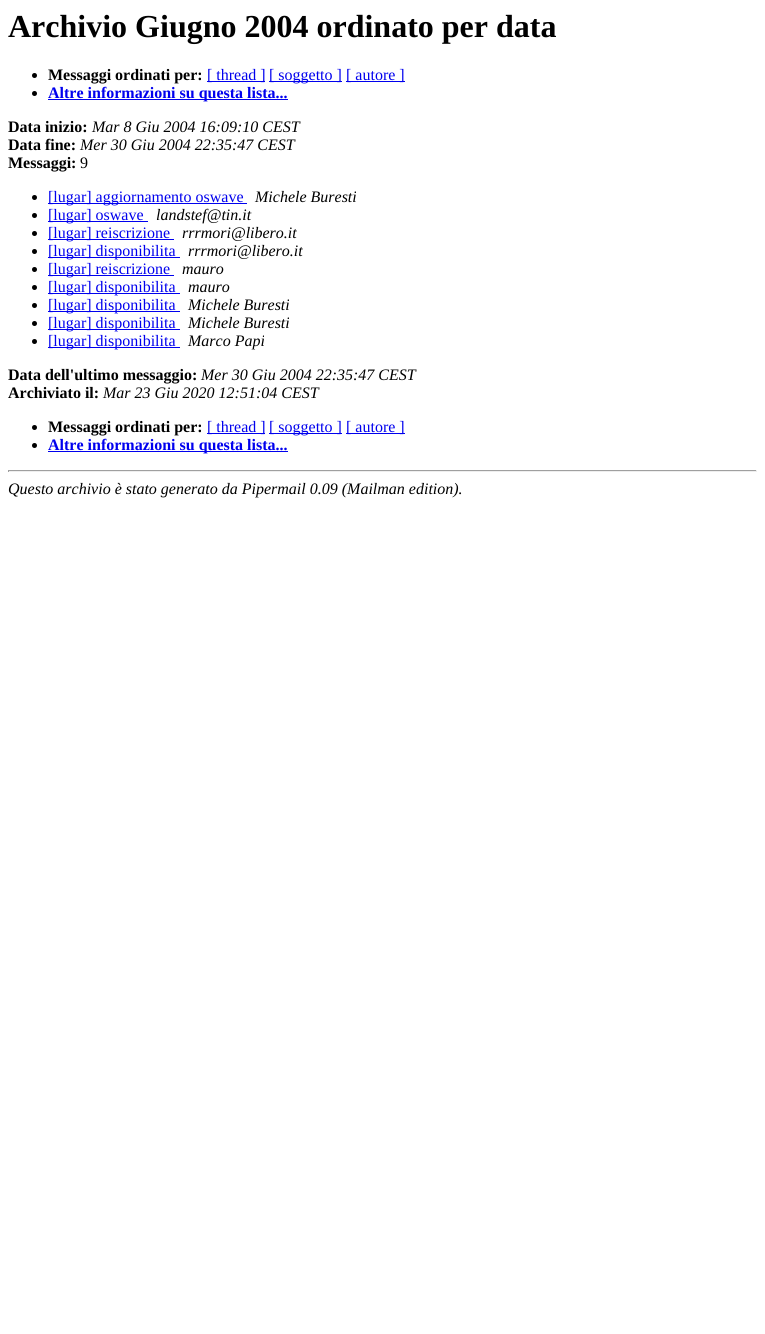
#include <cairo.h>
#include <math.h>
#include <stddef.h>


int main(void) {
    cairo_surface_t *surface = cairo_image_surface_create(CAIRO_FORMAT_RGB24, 765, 1334);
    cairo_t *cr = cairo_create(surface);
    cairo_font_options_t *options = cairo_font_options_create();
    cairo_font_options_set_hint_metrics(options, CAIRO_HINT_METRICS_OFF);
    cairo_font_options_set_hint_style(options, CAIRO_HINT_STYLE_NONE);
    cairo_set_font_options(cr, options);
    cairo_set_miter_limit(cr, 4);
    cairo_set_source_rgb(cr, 1, 1, 1);
    cairo_paint(cr);
    cairo_select_font_face(cr, "Liberation Serif", CAIRO_FONT_SLANT_NORMAL, CAIRO_FONT_WEIGHT_BOLD);
    cairo_set_font_size(cr, 32);
    cairo_set_source_rgb(cr, 0, 0, 0);
    cairo_move_to(cr, 8, 37);
    cairo_show_text(cr, "Archivio Giugno 2004 ordinato per data");
    cairo_new_path(cr);
    cairo_arc(cr, 34.5, 75.5, 2.5, 0, 2 * M_PI);
    cairo_fill(cr);
    cairo_set_font_size(cr, 16);
    cairo_move_to(cr, 48, 80);
    cairo_show_text(cr, "Messaggi ordinati per:");
    cairo_set_source_rgb(cr, 0, 0, 0.933);
    cairo_rectangle(cr, 207, 81, 58, 1);
    cairo_fill(cr);
    cairo_select_font_face(cr, "Liberation Serif", CAIRO_FONT_SLANT_NORMAL, CAIRO_FONT_WEIGHT_NORMAL);
    cairo_move_to(cr, 207, 80);
    cairo_show_text(cr, "[ thread ]");
    cairo_rectangle(cr, 269, 81, 73, 1);
    cairo_fill(cr);
    cairo_move_to(cr, 269, 80);
    cairo_show_text(cr, "[ soggetto ]");
    cairo_rectangle(cr, 346, 81, 59, 1);
    cairo_fill(cr);
    cairo_move_to(cr, 346, 80);
    cairo_show_text(cr, "[ autore ]");
    cairo_set_source_rgb(cr, 0, 0, 0);
    cairo_new_path(cr);
    cairo_arc(cr, 34.5, 93.5, 2.5, 0, 2 * M_PI);
    cairo_fill(cr);
    cairo_set_source_rgb(cr, 0, 0, 0.933);
    cairo_rectangle(cr, 48, 99, 240, 1);
    cairo_fill(cr);
    cairo_select_font_face(cr, "Liberation Serif", CAIRO_FONT_SLANT_NORMAL, CAIRO_FONT_WEIGHT_BOLD);
    cairo_move_to(cr, 48, 98);
    cairo_show_text(cr, "Altre informazioni su questa lista...");
    cairo_set_source_rgb(cr, 0, 0, 0);
    cairo_move_to(cr, 8, 132);
    cairo_show_text(cr, "Data inizio:");
    cairo_select_font_face(cr, "Liberation Serif", CAIRO_FONT_SLANT_ITALIC, CAIRO_FONT_WEIGHT_NORMAL);
    cairo_move_to(cr, 92, 132);
    cairo_show_text(cr, "Mar 8 Giu 2004 16:09:10 CEST");
    cairo_select_font_face(cr, "Liberation Serif", CAIRO_FONT_SLANT_NORMAL, CAIRO_FONT_WEIGHT_BOLD);
    cairo_move_to(cr, 8, 150);
    cairo_show_text(cr, "Data fine:");
    cairo_select_font_face(cr, "Liberation Serif", CAIRO_FONT_SLANT_ITALIC, CAIRO_FONT_WEIGHT_NORMAL);
    cairo_move_to(cr, 80, 150);
    cairo_show_text(cr, "Mer 30 Giu 2004 22:35:47 CEST");
    cairo_select_font_face(cr, "Liberation Serif", CAIRO_FONT_SLANT_NORMAL, CAIRO_FONT_WEIGHT_BOLD);
    cairo_move_to(cr, 8, 168);
    cairo_show_text(cr, "Messaggi:");
    cairo_select_font_face(cr, "Liberation Serif", CAIRO_FONT_SLANT_NORMAL, CAIRO_FONT_WEIGHT_NORMAL);
    cairo_move_to(cr, 80, 168);
    cairo_show_text(cr, "9");
    cairo_new_path(cr);
    cairo_arc(cr, 34.5, 197.5, 2.5, 0, 2 * M_PI);
    cairo_fill(cr);
    cairo_set_source_rgb(cr, 0, 0, 0.933);
    cairo_rectangle(cr, 48, 203, 199, 1);
    cairo_fill(cr);
    cairo_move_to(cr, 48, 202);
    cairo_show_text(cr, "[lugar] aggiornamento oswave");
    cairo_select_font_face(cr, "Liberation Serif", CAIRO_FONT_SLANT_ITALIC, CAIRO_FONT_WEIGHT_NORMAL);
    cairo_set_source_rgb(cr, 0, 0, 0);
    cairo_move_to(cr, 255, 202);
    cairo_show_text(cr, "Michele Buresti");
    cairo_new_path(cr);
    cairo_arc(cr, 34.5, 215.5, 2.5, 0, 2 * M_PI);
    cairo_fill(cr);
    cairo_set_source_rgb(cr, 0, 0, 0.933);
    cairo_rectangle(cr, 48, 221, 100, 1);
    cairo_fill(cr);
    cairo_select_font_face(cr, "Liberation Serif", CAIRO_FONT_SLANT_NORMAL, CAIRO_FONT_WEIGHT_NORMAL);
    cairo_move_to(cr, 48, 220);
    cairo_show_text(cr, "[lugar] oswave");
    cairo_select_font_face(cr, "Liberation Serif", CAIRO_FONT_SLANT_ITALIC, CAIRO_FONT_WEIGHT_NORMAL);
    cairo_set_source_rgb(cr, 0, 0, 0);
    cairo_move_to(cr, 156, 220);
    cairo_show_text(cr, "landstef@tin.it");
    cairo_new_path(cr);
    cairo_arc(cr, 34.5, 233.5, 2.5, 0, 2 * M_PI);
    cairo_fill(cr);
    cairo_set_source_rgb(cr, 0, 0, 0.933);
    cairo_rectangle(cr, 48, 239, 126, 1);
    cairo_fill(cr);
    cairo_select_font_face(cr, "Liberation Serif", CAIRO_FONT_SLANT_NORMAL, CAIRO_FONT_WEIGHT_NORMAL);
    cairo_move_to(cr, 48, 238);
    cairo_show_text(cr, "[lugar] reiscrizione");
    cairo_select_font_face(cr, "Liberation Serif", CAIRO_FONT_SLANT_ITALIC, CAIRO_FONT_WEIGHT_NORMAL);
    cairo_set_source_rgb(cr, 0, 0, 0);
    cairo_move_to(cr, 182, 238);
    cairo_show_text(cr, "rrrmori@libero.it");
    cairo_new_path(cr);
    cairo_arc(cr, 34.5, 251.5, 2.5, 0, 2 * M_PI);
    cairo_fill(cr);
    cairo_set_source_rgb(cr, 0, 0, 0.933);
    cairo_rectangle(cr, 48, 257, 132, 1);
    cairo_fill(cr);
    cairo_select_font_face(cr, "Liberation Serif", CAIRO_FONT_SLANT_NORMAL, CAIRO_FONT_WEIGHT_NORMAL);
    cairo_move_to(cr, 48, 256);
    cairo_show_text(cr, "[lugar] disponibilita");
    cairo_select_font_face(cr, "Liberation Serif", CAIRO_FONT_SLANT_ITALIC, CAIRO_FONT_WEIGHT_NORMAL);
    cairo_set_source_rgb(cr, 0, 0, 0);
    cairo_move_to(cr, 188, 256);
    cairo_show_text(cr, "rrrmori@libero.it");
    cairo_new_path(cr);
    cairo_arc(cr, 34.5, 269.5, 2.5, 0, 2 * M_PI);
    cairo_fill(cr);
    cairo_set_source_rgb(cr, 0, 0, 0.933);
    cairo_rectangle(cr, 48, 275, 126, 1);
    cairo_fill(cr);
    cairo_select_font_face(cr, "Liberation Serif", CAIRO_FONT_SLANT_NORMAL, CAIRO_FONT_WEIGHT_NORMAL);
    cairo_move_to(cr, 48, 274);
    cairo_show_text(cr, "[lugar] reiscrizione");
    cairo_select_font_face(cr, "Liberation Serif", CAIRO_FONT_SLANT_ITALIC, CAIRO_FONT_WEIGHT_NORMAL);
    cairo_set_source_rgb(cr, 0, 0, 0);
    cairo_move_to(cr, 182, 274);
    cairo_show_text(cr, "mauro");
    cairo_new_path(cr);
    cairo_arc(cr, 34.5, 287.5, 2.5, 0, 2 * M_PI);
    cairo_fill(cr);
    cairo_set_source_rgb(cr, 0, 0, 0.933);
    cairo_rectangle(cr, 48, 293, 132, 1);
    cairo_fill(cr);
    cairo_select_font_face(cr, "Liberation Serif", CAIRO_FONT_SLANT_NORMAL, CAIRO_FONT_WEIGHT_NORMAL);
    cairo_move_to(cr, 48, 292);
    cairo_show_text(cr, "[lugar] disponibilita");
    cairo_select_font_face(cr, "Liberation Serif", CAIRO_FONT_SLANT_ITALIC, CAIRO_FONT_WEIGHT_NORMAL);
    cairo_set_source_rgb(cr, 0, 0, 0);
    cairo_move_to(cr, 188, 292);
    cairo_show_text(cr, "mauro");
    cairo_new_path(cr);
    cairo_arc(cr, 34.5, 305.5, 2.5, 0, 2 * M_PI);
    cairo_fill(cr);
    cairo_set_source_rgb(cr, 0, 0, 0.933);
    cairo_rectangle(cr, 48, 311, 132, 1);
    cairo_fill(cr);
    cairo_select_font_face(cr, "Liberation Serif", CAIRO_FONT_SLANT_NORMAL, CAIRO_FONT_WEIGHT_NORMAL);
    cairo_move_to(cr, 48, 310);
    cairo_show_text(cr, "[lugar] disponibilita");
    cairo_select_font_face(cr, "Liberation Serif", CAIRO_FONT_SLANT_ITALIC, CAIRO_FONT_WEIGHT_NORMAL);
    cairo_set_source_rgb(cr, 0, 0, 0);
    cairo_move_to(cr, 188, 310);
    cairo_show_text(cr, "Michele Buresti");
    cairo_new_path(cr);
    cairo_arc(cr, 34.5, 323.5, 2.5, 0, 2 * M_PI);
    cairo_fill(cr);
    cairo_set_source_rgb(cr, 0, 0, 0.933);
    cairo_rectangle(cr, 48, 329, 132, 1);
    cairo_fill(cr);
    cairo_select_font_face(cr, "Liberation Serif", CAIRO_FONT_SLANT_NORMAL, CAIRO_FONT_WEIGHT_NORMAL);
    cairo_move_to(cr, 48, 328);
    cairo_show_text(cr, "[lugar] disponibilita");
    cairo_select_font_face(cr, "Liberation Serif", CAIRO_FONT_SLANT_ITALIC, CAIRO_FONT_WEIGHT_NORMAL);
    cairo_set_source_rgb(cr, 0, 0, 0);
    cairo_move_to(cr, 188, 328);
    cairo_show_text(cr, "Michele Buresti");
    cairo_new_path(cr);
    cairo_arc(cr, 34.5, 341.5, 2.5, 0, 2 * M_PI);
    cairo_fill(cr);
    cairo_set_source_rgb(cr, 0, 0, 0.933);
    cairo_rectangle(cr, 48, 347, 132, 1);
    cairo_fill(cr);
    cairo_select_font_face(cr, "Liberation Serif", CAIRO_FONT_SLANT_NORMAL, CAIRO_FONT_WEIGHT_NORMAL);
    cairo_move_to(cr, 48, 346);
    cairo_show_text(cr, "[lugar] disponibilita");
    cairo_select_font_face(cr, "Liberation Serif", CAIRO_FONT_SLANT_ITALIC, CAIRO_FONT_WEIGHT_NORMAL);
    cairo_set_source_rgb(cr, 0, 0, 0);
    cairo_move_to(cr, 188, 346);
    cairo_show_text(cr, "Marco Papi");
    cairo_select_font_face(cr, "Liberation Serif", CAIRO_FONT_SLANT_NORMAL, CAIRO_FONT_WEIGHT_BOLD);
    cairo_move_to(cr, 8, 380);
    cairo_show_text(cr, "Data dell'ultimo messaggio:");
    cairo_select_font_face(cr, "Liberation Serif", CAIRO_FONT_SLANT_ITALIC, CAIRO_FONT_WEIGHT_NORMAL);
    cairo_move_to(cr, 201, 380);
    cairo_show_text(cr, "Mer 30 Giu 2004 22:35:47 CEST");
    cairo_select_font_face(cr, "Liberation Serif", CAIRO_FONT_SLANT_NORMAL, CAIRO_FONT_WEIGHT_BOLD);
    cairo_move_to(cr, 8, 398);
    cairo_show_text(cr, "Archiviato il:");
    cairo_select_font_face(cr, "Liberation Serif", CAIRO_FONT_SLANT_ITALIC, CAIRO_FONT_WEIGHT_NORMAL);
    cairo_move_to(cr, 103, 398);
    cairo_show_text(cr, "Mar 23 Giu 2020 12:51:04 CEST");
    cairo_new_path(cr);
    cairo_arc(cr, 34.5, 427.5, 2.5, 0, 2 * M_PI);
    cairo_fill(cr);
    cairo_select_font_face(cr, "Liberation Serif", CAIRO_FONT_SLANT_NORMAL, CAIRO_FONT_WEIGHT_BOLD);
    cairo_move_to(cr, 48, 432);
    cairo_show_text(cr, "Messaggi ordinati per:");
    cairo_set_source_rgb(cr, 0, 0, 0.933);
    cairo_rectangle(cr, 207, 433, 58, 1);
    cairo_fill(cr);
    cairo_select_font_face(cr, "Liberation Serif", CAIRO_FONT_SLANT_NORMAL, CAIRO_FONT_WEIGHT_NORMAL);
    cairo_move_to(cr, 207, 432);
    cairo_show_text(cr, "[ thread ]");
    cairo_rectangle(cr, 269, 433, 73, 1);
    cairo_fill(cr);
    cairo_move_to(cr, 269, 432);
    cairo_show_text(cr, "[ soggetto ]");
    cairo_rectangle(cr, 346, 433, 59, 1);
    cairo_fill(cr);
    cairo_move_to(cr, 346, 432);
    cairo_show_text(cr, "[ autore ]");
    cairo_set_source_rgb(cr, 0, 0, 0);
    cairo_new_path(cr);
    cairo_arc(cr, 34.5, 445.5, 2.5, 0, 2 * M_PI);
    cairo_fill(cr);
    cairo_set_source_rgb(cr, 0, 0, 0.933);
    cairo_rectangle(cr, 48, 451, 240, 1);
    cairo_fill(cr);
    cairo_select_font_face(cr, "Liberation Serif", CAIRO_FONT_SLANT_NORMAL, CAIRO_FONT_WEIGHT_BOLD);
    cairo_move_to(cr, 48, 450);
    cairo_show_text(cr, "Altre informazioni su questa lista...");
    cairo_set_source_rgb(cr, 0.624, 0.624, 0.624);
    cairo_rectangle(cr, 8, 470, 749, 1);
    cairo_fill(cr);
    cairo_set_source_rgb(cr, 0.933, 0.933, 0.933);
    cairo_rectangle(cr, 756, 470, 1, 2);
    cairo_fill(cr);
    cairo_rectangle(cr, 8, 471, 749, 1);
    cairo_fill(cr);
    cairo_set_source_rgb(cr, 0.624, 0.624, 0.624);
    cairo_rectangle(cr, 8, 470, 1, 2);
    cairo_fill(cr);
    cairo_select_font_face(cr, "Liberation Serif", CAIRO_FONT_SLANT_ITALIC, CAIRO_FONT_WEIGHT_NORMAL);
    cairo_set_source_rgb(cr, 0, 0, 0);
    cairo_move_to(cr, 8, 494);
    cairo_show_text(cr, "Questo archivio è stato generato da Pipermail 0.09 (Mailman edition).");
    cairo_surface_write_to_png(surface, "page.png");
    cairo_font_options_destroy(options);
    cairo_destroy(cr);
    cairo_surface_destroy(surface);
    return 0;
}
